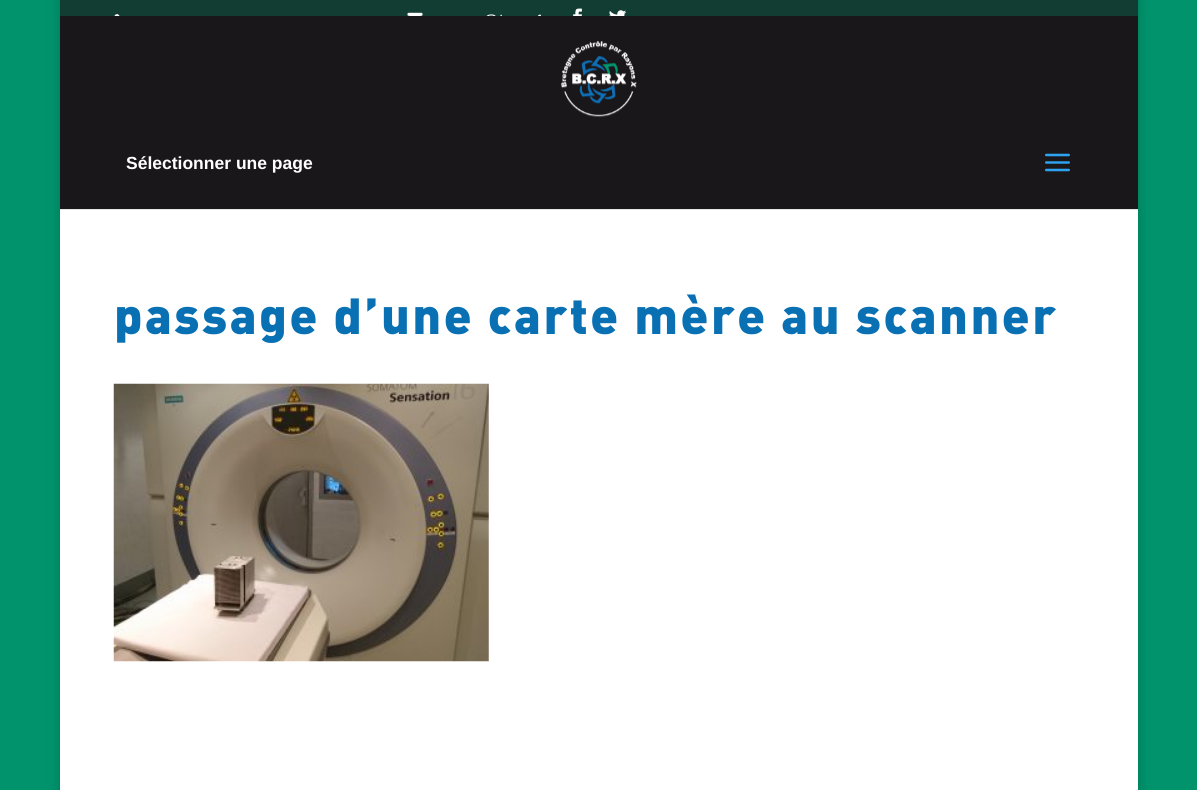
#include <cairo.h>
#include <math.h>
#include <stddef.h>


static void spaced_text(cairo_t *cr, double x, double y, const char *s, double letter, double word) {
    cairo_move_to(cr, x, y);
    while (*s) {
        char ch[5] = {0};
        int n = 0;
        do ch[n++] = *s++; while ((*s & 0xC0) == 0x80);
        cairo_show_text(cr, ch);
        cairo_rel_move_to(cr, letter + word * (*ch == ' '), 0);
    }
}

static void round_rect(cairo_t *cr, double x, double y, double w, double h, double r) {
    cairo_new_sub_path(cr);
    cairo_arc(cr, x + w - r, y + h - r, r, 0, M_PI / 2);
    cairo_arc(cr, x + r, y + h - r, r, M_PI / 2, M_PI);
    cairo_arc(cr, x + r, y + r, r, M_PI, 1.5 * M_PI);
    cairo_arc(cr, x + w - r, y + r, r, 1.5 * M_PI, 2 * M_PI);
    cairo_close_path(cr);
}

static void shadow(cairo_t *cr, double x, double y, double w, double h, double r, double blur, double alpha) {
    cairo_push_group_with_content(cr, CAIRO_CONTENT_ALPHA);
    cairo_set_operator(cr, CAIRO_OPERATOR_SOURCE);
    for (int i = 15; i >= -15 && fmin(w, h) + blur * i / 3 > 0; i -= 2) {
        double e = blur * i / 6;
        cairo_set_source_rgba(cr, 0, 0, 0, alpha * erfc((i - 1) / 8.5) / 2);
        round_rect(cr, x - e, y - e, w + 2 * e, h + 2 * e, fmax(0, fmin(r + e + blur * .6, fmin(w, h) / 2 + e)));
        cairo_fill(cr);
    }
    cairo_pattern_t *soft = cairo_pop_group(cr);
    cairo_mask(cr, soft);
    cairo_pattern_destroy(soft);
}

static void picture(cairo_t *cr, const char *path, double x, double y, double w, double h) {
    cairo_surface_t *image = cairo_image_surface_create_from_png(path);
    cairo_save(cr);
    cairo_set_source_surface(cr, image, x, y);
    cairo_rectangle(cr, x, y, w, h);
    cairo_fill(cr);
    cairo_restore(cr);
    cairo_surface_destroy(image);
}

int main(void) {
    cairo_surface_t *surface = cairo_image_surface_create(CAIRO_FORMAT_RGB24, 1197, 790);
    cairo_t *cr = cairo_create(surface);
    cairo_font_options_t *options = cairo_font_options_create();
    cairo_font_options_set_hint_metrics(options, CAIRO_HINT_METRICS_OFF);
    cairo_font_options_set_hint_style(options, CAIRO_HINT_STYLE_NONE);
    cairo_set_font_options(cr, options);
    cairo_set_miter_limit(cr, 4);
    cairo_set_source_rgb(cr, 0, 0.576, 0.424);
    cairo_paint(cr);
    cairo_save(cr);
    cairo_set_fill_rule(cr, CAIRO_FILL_RULE_EVEN_ODD);
    cairo_new_path(cr);
    cairo_move_to(cr, 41, 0);
    cairo_line_to(cr, 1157, 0);
    cairo_line_to(cr, 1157, 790);
    cairo_line_to(cr, 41, 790);
    cairo_close_path(cr);
    cairo_move_to(cr, 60, 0);
    cairo_line_to(cr, 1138, 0);
    cairo_line_to(cr, 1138, 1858);
    cairo_line_to(cr, 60, 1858);
    cairo_close_path(cr);
    cairo_clip(cr);
    cairo_set_source_rgb(cr, 0, 0, 0);
    shadow(cr, 60, 0, 1078, 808, 0, 6, 0.2);
    cairo_restore(cr);
    cairo_set_source_rgba(cr, 0.102, 0.09, 0.106, 0.69);
    cairo_rectangle(cr, 60, 0, 1078, 16);
    cairo_fill(cr);
    picture(cr, "img1.png", 114, 14, 6, 2);
    picture(cr, "img2.png", 407, 12, 16, 4);
    picture(cr, "img3.png", 486, 14, 55, 2);
    picture(cr, "img4.png", 573, 8, 9, 8);
    picture(cr, "img5.png", 609, 10, 17, 6);
    cairo_set_source_rgb(cr, 0.902, 0.902, 0.902);
    cairo_new_path(cr);
    cairo_move_to(cr, 60, 209);
    cairo_line_to(cr, 60, 210);
    cairo_line_to(cr, 1138, 210);
    cairo_line_to(cr, 1138, 18);
    cairo_line_to(cr, 1138, 209);
    cairo_close_path(cr);
    cairo_fill(cr);
    cairo_set_source_rgb(cr, 0.102, 0.09, 0.106);
    cairo_rectangle(cr, 60, 16, 1078, 193);
    cairo_fill(cr);
    picture(cr, "img6.png", 561, 41, 76, 76);
    cairo_select_font_face(cr, "Liberation Sans", CAIRO_FONT_SLANT_NORMAL, CAIRO_FONT_WEIGHT_BOLD);
    cairo_set_font_size(cr, 17.5);
    cairo_set_source_rgb(cr, 1, 1, 1);
    cairo_move_to(cr, 126, 169);
    cairo_show_text(cr, "Sélectionner une page");
    picture(cr, "img7.png", 1045, 153, 25, 19);
    cairo_rectangle(cr, 60, 210, 1078, 580);
    cairo_fill(cr);
    cairo_select_font_face(cr, "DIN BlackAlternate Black", CAIRO_FONT_SLANT_NORMAL, CAIRO_FONT_WEIGHT_NORMAL);
    cairo_set_font_size(cr, 50);
    cairo_set_source_rgb(cr, 0.039, 0.443, 0.702);
    spaced_text(cr, 114, 334, "passage d’une carte mère au scanner", 2.5, 0);
    picture(cr, "img8.png", 113, 383, 376, 279);
    cairo_surface_write_to_png(surface, "page.png");
    cairo_font_options_destroy(options);
    cairo_destroy(cr);
    cairo_surface_destroy(surface);
    return 0;
}
